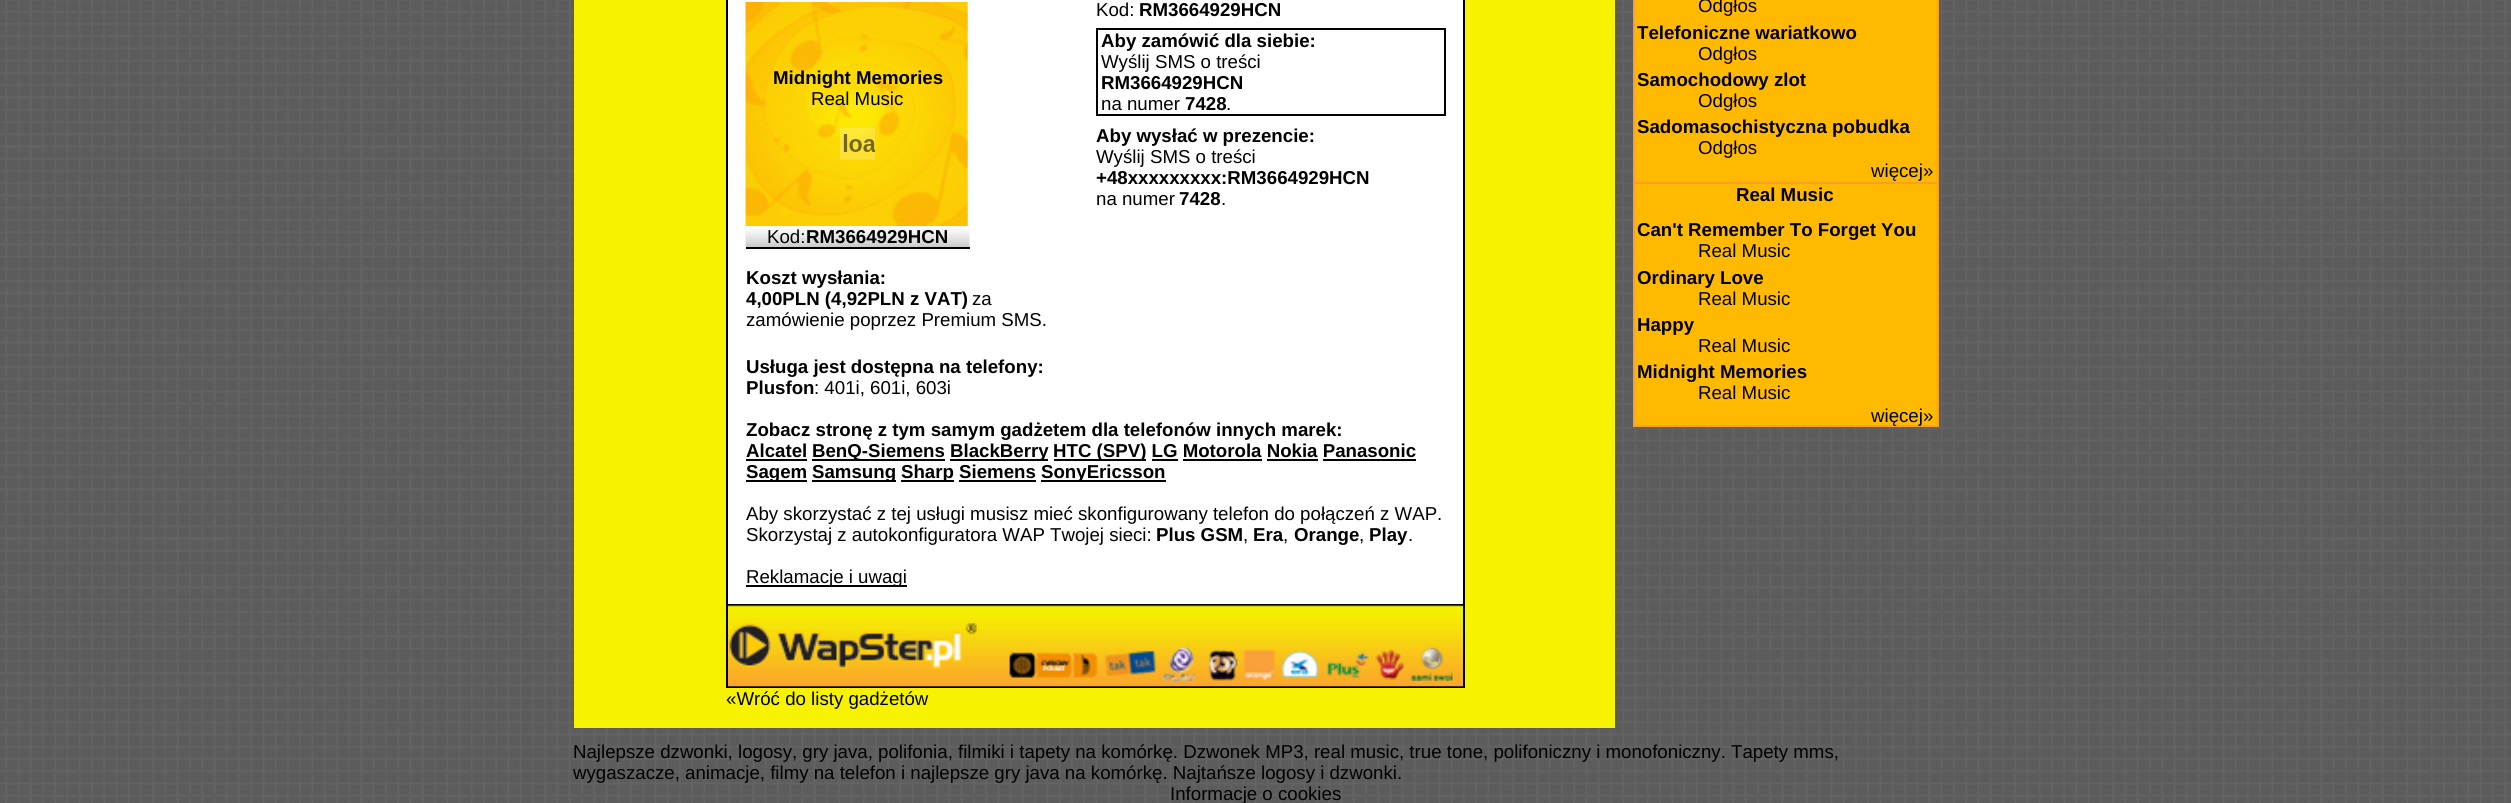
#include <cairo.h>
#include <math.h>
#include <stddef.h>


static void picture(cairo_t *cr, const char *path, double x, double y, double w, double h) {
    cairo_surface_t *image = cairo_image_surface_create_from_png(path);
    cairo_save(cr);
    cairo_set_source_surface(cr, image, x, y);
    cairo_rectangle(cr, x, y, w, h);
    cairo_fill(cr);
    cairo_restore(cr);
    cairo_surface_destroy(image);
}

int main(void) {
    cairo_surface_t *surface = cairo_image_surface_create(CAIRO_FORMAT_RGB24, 2511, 803);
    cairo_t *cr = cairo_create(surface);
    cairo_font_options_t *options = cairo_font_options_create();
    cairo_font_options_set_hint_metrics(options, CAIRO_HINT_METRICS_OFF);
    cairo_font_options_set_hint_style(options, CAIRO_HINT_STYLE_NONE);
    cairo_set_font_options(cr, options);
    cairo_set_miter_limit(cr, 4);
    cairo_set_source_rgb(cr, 1, 1, 1);
    cairo_paint(cr);
    picture(cr, "img1.png", 0, 0, 2511, 803);
    cairo_set_source_rgb(cr, 0.961, 0.949, 0);
    cairo_rectangle(cr, 574, 0, 1041, 728);
    cairo_fill(cr);
    cairo_set_source_rgb(cr, 1, 1, 1);
    cairo_rectangle(cr, 728, 0, 735, 604);
    cairo_fill(cr);
    cairo_rectangle(cr, 727, -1, 737, 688);
    cairo_set_source_rgb(cr, 0, 0, 0);
    cairo_stroke(cr);
    cairo_rectangle(cr, 746, 247, 224, 2);
    cairo_fill(cr);
    cairo_set_source_rgb(cr, 0.988, 0.988, 0.988);
    cairo_rectangle(cr, 746, 0, 224, 2);
    cairo_fill(cr);
    picture(cr, "img2.png", 745, 2, 223, 224);
    cairo_select_font_face(cr, "Liberation Sans", CAIRO_FONT_SLANT_NORMAL, CAIRO_FONT_WEIGHT_BOLD);
    cairo_set_font_size(cr, 18.67);
    cairo_set_source_rgb(cr, 0, 0, 0);
    cairo_move_to(cr, 773, 84);
    cairo_show_text(cr, "Midnight Memories");
    cairo_select_font_face(cr, "Liberation Sans", CAIRO_FONT_SLANT_NORMAL, CAIRO_FONT_WEIGHT_NORMAL);
    cairo_move_to(cr, 811, 105);
    cairo_show_text(cr, "Real Music");
    picture(cr, "img3.png", 840, 128, 35, 32);
    cairo_set_source_rgb(cr, 0.988, 0.988, 0.988);
    cairo_rectangle(cr, 746, 226, 224, 21);
    cairo_fill(cr);
    picture(cr, "img4.png", 745, 229, 225, 18);
    cairo_set_source_rgb(cr, 0, 0, 0);
    cairo_move_to(cr, 767, 243);
    cairo_show_text(cr, "Kod:");
    cairo_select_font_face(cr, "Liberation Sans", CAIRO_FONT_SLANT_NORMAL, CAIRO_FONT_WEIGHT_BOLD);
    cairo_move_to(cr, 806, 243);
    cairo_show_text(cr, "RM3664929HCN");
    cairo_move_to(cr, 746, 284);
    cairo_show_text(cr, "Koszt wysłania:");
    cairo_move_to(cr, 746, 305);
    cairo_show_text(cr, "4,00PLN (4,92PLN z VAT)");
    cairo_select_font_face(cr, "Liberation Sans", CAIRO_FONT_SLANT_NORMAL, CAIRO_FONT_WEIGHT_NORMAL);
    cairo_move_to(cr, 972, 305);
    cairo_show_text(cr, "za");
    cairo_move_to(cr, 746, 326);
    cairo_show_text(cr, "zamówienie poprzez Premium SMS.");
    cairo_move_to(cr, 1096, 16);
    cairo_show_text(cr, "Kod:");
    cairo_select_font_face(cr, "Liberation Sans", CAIRO_FONT_SLANT_NORMAL, CAIRO_FONT_WEIGHT_BOLD);
    cairo_move_to(cr, 1139, 16);
    cairo_show_text(cr, "RM3664929HCN");
    cairo_rectangle(cr, 1097, 29, 348, 86);
    cairo_stroke(cr);
    cairo_move_to(cr, 1101, 47);
    cairo_show_text(cr, "Aby zamówić dla siebie:");
    cairo_select_font_face(cr, "Liberation Sans", CAIRO_FONT_SLANT_NORMAL, CAIRO_FONT_WEIGHT_NORMAL);
    cairo_move_to(cr, 1101, 68);
    cairo_show_text(cr, "Wyślij SMS o treści");
    cairo_select_font_face(cr, "Liberation Sans", CAIRO_FONT_SLANT_NORMAL, CAIRO_FONT_WEIGHT_BOLD);
    cairo_move_to(cr, 1101, 89);
    cairo_show_text(cr, "RM3664929HCN");
    cairo_select_font_face(cr, "Liberation Sans", CAIRO_FONT_SLANT_NORMAL, CAIRO_FONT_WEIGHT_NORMAL);
    cairo_move_to(cr, 1101, 110);
    cairo_show_text(cr, "na numer");
    cairo_select_font_face(cr, "Liberation Sans", CAIRO_FONT_SLANT_NORMAL, CAIRO_FONT_WEIGHT_BOLD);
    cairo_move_to(cr, 1185, 110);
    cairo_show_text(cr, "7428");
    cairo_select_font_face(cr, "Liberation Sans", CAIRO_FONT_SLANT_NORMAL, CAIRO_FONT_WEIGHT_NORMAL);
    cairo_move_to(cr, 1226, 110);
    cairo_show_text(cr, ".");
    cairo_select_font_face(cr, "Liberation Sans", CAIRO_FONT_SLANT_NORMAL, CAIRO_FONT_WEIGHT_BOLD);
    cairo_move_to(cr, 1096, 142);
    cairo_show_text(cr, "Aby wysłać w prezencie:");
    cairo_select_font_face(cr, "Liberation Sans", CAIRO_FONT_SLANT_NORMAL, CAIRO_FONT_WEIGHT_NORMAL);
    cairo_move_to(cr, 1096, 163);
    cairo_show_text(cr, "Wyślij SMS o treści");
    cairo_select_font_face(cr, "Liberation Sans", CAIRO_FONT_SLANT_NORMAL, CAIRO_FONT_WEIGHT_BOLD);
    cairo_move_to(cr, 1096, 184);
    cairo_show_text(cr, "+48xxxxxxxxx:RM3664929HCN");
    cairo_select_font_face(cr, "Liberation Sans", CAIRO_FONT_SLANT_NORMAL, CAIRO_FONT_WEIGHT_NORMAL);
    cairo_move_to(cr, 1096, 205);
    cairo_show_text(cr, "na numer");
    cairo_select_font_face(cr, "Liberation Sans", CAIRO_FONT_SLANT_NORMAL, CAIRO_FONT_WEIGHT_BOLD);
    cairo_move_to(cr, 1179, 205);
    cairo_show_text(cr, "7428");
    cairo_select_font_face(cr, "Liberation Sans", CAIRO_FONT_SLANT_NORMAL, CAIRO_FONT_WEIGHT_NORMAL);
    cairo_move_to(cr, 1221, 205);
    cairo_show_text(cr, ".");
    cairo_select_font_face(cr, "Liberation Sans", CAIRO_FONT_SLANT_NORMAL, CAIRO_FONT_WEIGHT_BOLD);
    cairo_move_to(cr, 746, 373);
    cairo_show_text(cr, "Usługa jest dostępna na telefony:");
    cairo_move_to(cr, 746, 394);
    cairo_show_text(cr, "Plusfon");
    cairo_select_font_face(cr, "Liberation Sans", CAIRO_FONT_SLANT_NORMAL, CAIRO_FONT_WEIGHT_NORMAL);
    cairo_move_to(cr, 814, 394);
    cairo_show_text(cr, ": 401i, 601i, 603i");
    cairo_select_font_face(cr, "Liberation Sans", CAIRO_FONT_SLANT_NORMAL, CAIRO_FONT_WEIGHT_BOLD);
    cairo_move_to(cr, 746, 436);
    cairo_show_text(cr, "Zobacz stronę z tym samym gadżetem dla telefonów innych marek:");
    cairo_move_to(cr, 746, 457);
    cairo_show_text(cr, "Alcatel");
    cairo_rectangle(cr, 746, 459, 61, 2);
    cairo_fill(cr);
    cairo_rectangle(cr, 812, 459, 133, 2);
    cairo_fill(cr);
    cairo_move_to(cr, 812, 457);
    cairo_show_text(cr, "BenQ-Siemens");
    cairo_rectangle(cr, 950, 459, 98, 2);
    cairo_fill(cr);
    cairo_move_to(cr, 950, 457);
    cairo_show_text(cr, "BlackBerry");
    cairo_rectangle(cr, 1054, 459, 92, 2);
    cairo_fill(cr);
    cairo_move_to(cr, 1053, 457);
    cairo_show_text(cr, "HTC (SPV) LG Motorola Nokia Panasonic");
    cairo_rectangle(cr, 1152, 459, 26, 2);
    cairo_fill(cr);
    cairo_rectangle(cr, 1183, 459, 79, 2);
    cairo_fill(cr);
    cairo_rectangle(cr, 1267, 459, 51, 2);
    cairo_fill(cr);
    cairo_rectangle(cr, 1323, 459, 93, 2);
    cairo_fill(cr);
    cairo_rectangle(cr, 746, 480, 61, 2);
    cairo_fill(cr);
    cairo_move_to(cr, 746, 478);
    cairo_show_text(cr, "Sagem");
    cairo_rectangle(cr, 812, 480, 84, 2);
    cairo_fill(cr);
    cairo_move_to(cr, 812, 478);
    cairo_show_text(cr, "Samsung");
    cairo_rectangle(cr, 901, 480, 53, 2);
    cairo_fill(cr);
    cairo_move_to(cr, 901, 478);
    cairo_show_text(cr, "Sharp Siemens");
    cairo_rectangle(cr, 959, 480, 77, 2);
    cairo_fill(cr);
    cairo_rectangle(cr, 1041, 480, 125, 2);
    cairo_fill(cr);
    cairo_move_to(cr, 1041, 478);
    cairo_show_text(cr, "SonyEricsson");
    cairo_select_font_face(cr, "Liberation Sans", CAIRO_FONT_SLANT_NORMAL, CAIRO_FONT_WEIGHT_NORMAL);
    cairo_move_to(cr, 746, 520);
    cairo_show_text(cr, "Aby skorzystać z tej usługi musisz mieć skonfigurowany telefon do połączeń z WAP.");
    cairo_move_to(cr, 746, 541);
    cairo_show_text(cr, "Skorzystaj z autokonfiguratora WAP Twojej sieci:");
    cairo_select_font_face(cr, "Liberation Sans", CAIRO_FONT_SLANT_NORMAL, CAIRO_FONT_WEIGHT_BOLD);
    cairo_move_to(cr, 1156, 541);
    cairo_show_text(cr, "Plus GSM");
    cairo_select_font_face(cr, "Liberation Sans", CAIRO_FONT_SLANT_NORMAL, CAIRO_FONT_WEIGHT_NORMAL);
    cairo_move_to(cr, 1243, 541);
    cairo_show_text(cr, ",");
    cairo_select_font_face(cr, "Liberation Sans", CAIRO_FONT_SLANT_NORMAL, CAIRO_FONT_WEIGHT_BOLD);
    cairo_move_to(cr, 1253, 541);
    cairo_show_text(cr, "Era");
    cairo_select_font_face(cr, "Liberation Sans", CAIRO_FONT_SLANT_NORMAL, CAIRO_FONT_WEIGHT_NORMAL);
    cairo_move_to(cr, 1283, 541);
    cairo_show_text(cr, ",");
    cairo_select_font_face(cr, "Liberation Sans", CAIRO_FONT_SLANT_NORMAL, CAIRO_FONT_WEIGHT_BOLD);
    cairo_move_to(cr, 1294, 541);
    cairo_show_text(cr, "Orange");
    cairo_select_font_face(cr, "Liberation Sans", CAIRO_FONT_SLANT_NORMAL, CAIRO_FONT_WEIGHT_NORMAL);
    cairo_move_to(cr, 1359, 541);
    cairo_show_text(cr, ",");
    cairo_select_font_face(cr, "Liberation Sans", CAIRO_FONT_SLANT_NORMAL, CAIRO_FONT_WEIGHT_BOLD);
    cairo_move_to(cr, 1369, 541);
    cairo_show_text(cr, "Play");
    cairo_select_font_face(cr, "Liberation Sans", CAIRO_FONT_SLANT_NORMAL, CAIRO_FONT_WEIGHT_NORMAL);
    cairo_move_to(cr, 1408, 541);
    cairo_show_text(cr, ".");
    cairo_rectangle(cr, 746, 585, 161, 2);
    cairo_fill(cr);
    cairo_move_to(cr, 746, 583);
    cairo_show_text(cr, "Reklamacje i uwagi");
    picture(cr, "img5.png", 728, 604, 735, 83);
    picture(cr, "img6.png", 728, 623, 249, 46);
    picture(cr, "img7.png", 1009, 647, 444, 34);
    cairo_move_to(cr, 726, 705);
    cairo_show_text(cr, "«Wróć do listy gadżetów");
    cairo_set_source_rgb(cr, 1, 0.729, 0);
    cairo_rectangle(cr, 1634, -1, 304, 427);
    cairo_fill_preserve(cr);
    cairo_set_source_rgb(cr, 0.988, 0.62, 0.184);
    cairo_stroke(cr);
    cairo_set_source_rgb(cr, 0, 0, 0);
    cairo_move_to(cr, 1698, 12);
    cairo_show_text(cr, "Odgłos");
    cairo_select_font_face(cr, "Liberation Sans", CAIRO_FONT_SLANT_NORMAL, CAIRO_FONT_WEIGHT_BOLD);
    cairo_move_to(cr, 1637, 39);
    cairo_show_text(cr, "Telefoniczne wariatkowo");
    cairo_select_font_face(cr, "Liberation Sans", CAIRO_FONT_SLANT_NORMAL, CAIRO_FONT_WEIGHT_NORMAL);
    cairo_move_to(cr, 1698, 60);
    cairo_show_text(cr, "Odgłos");
    cairo_select_font_face(cr, "Liberation Sans", CAIRO_FONT_SLANT_NORMAL, CAIRO_FONT_WEIGHT_BOLD);
    cairo_move_to(cr, 1637, 86);
    cairo_show_text(cr, "Samochodowy zlot");
    cairo_select_font_face(cr, "Liberation Sans", CAIRO_FONT_SLANT_NORMAL, CAIRO_FONT_WEIGHT_NORMAL);
    cairo_move_to(cr, 1698, 107);
    cairo_show_text(cr, "Odgłos");
    cairo_select_font_face(cr, "Liberation Sans", CAIRO_FONT_SLANT_NORMAL, CAIRO_FONT_WEIGHT_BOLD);
    cairo_move_to(cr, 1637, 133);
    cairo_show_text(cr, "Sadomasochistyczna pobudka");
    cairo_select_font_face(cr, "Liberation Sans", CAIRO_FONT_SLANT_NORMAL, CAIRO_FONT_WEIGHT_NORMAL);
    cairo_move_to(cr, 1698, 154);
    cairo_show_text(cr, "Odgłos");
    cairo_move_to(cr, 1871, 177);
    cairo_show_text(cr, "więcej»");
    cairo_set_source_rgb(cr, 0.988, 0.62, 0.184);
    cairo_rectangle(cr, 1635, 182, 302, 2);
    cairo_fill(cr);
    cairo_select_font_face(cr, "Liberation Sans", CAIRO_FONT_SLANT_NORMAL, CAIRO_FONT_WEIGHT_BOLD);
    cairo_set_source_rgb(cr, 0, 0, 0);
    cairo_move_to(cr, 1736, 201);
    cairo_show_text(cr, "Real Music");
    cairo_move_to(cr, 1637, 236);
    cairo_show_text(cr, "Can't Remember To Forget You");
    cairo_select_font_face(cr, "Liberation Sans", CAIRO_FONT_SLANT_NORMAL, CAIRO_FONT_WEIGHT_NORMAL);
    cairo_move_to(cr, 1698, 257);
    cairo_show_text(cr, "Real Music");
    cairo_select_font_face(cr, "Liberation Sans", CAIRO_FONT_SLANT_NORMAL, CAIRO_FONT_WEIGHT_BOLD);
    cairo_move_to(cr, 1637, 284);
    cairo_show_text(cr, "Ordinary Love");
    cairo_select_font_face(cr, "Liberation Sans", CAIRO_FONT_SLANT_NORMAL, CAIRO_FONT_WEIGHT_NORMAL);
    cairo_move_to(cr, 1698, 305);
    cairo_show_text(cr, "Real Music");
    cairo_select_font_face(cr, "Liberation Sans", CAIRO_FONT_SLANT_NORMAL, CAIRO_FONT_WEIGHT_BOLD);
    cairo_move_to(cr, 1637, 331);
    cairo_show_text(cr, "Happy");
    cairo_select_font_face(cr, "Liberation Sans", CAIRO_FONT_SLANT_NORMAL, CAIRO_FONT_WEIGHT_NORMAL);
    cairo_move_to(cr, 1698, 352);
    cairo_show_text(cr, "Real Music");
    cairo_select_font_face(cr, "Liberation Sans", CAIRO_FONT_SLANT_NORMAL, CAIRO_FONT_WEIGHT_BOLD);
    cairo_move_to(cr, 1637, 378);
    cairo_show_text(cr, "Midnight Memories");
    cairo_select_font_face(cr, "Liberation Sans", CAIRO_FONT_SLANT_NORMAL, CAIRO_FONT_WEIGHT_NORMAL);
    cairo_move_to(cr, 1698, 399);
    cairo_show_text(cr, "Real Music");
    cairo_move_to(cr, 1871, 422);
    cairo_show_text(cr, "więcej»");
    cairo_move_to(cr, 573, 758);
    cairo_show_text(cr, "Najlepsze dzwonki, logosy, gry java, polifonia, filmiki i tapety na komórkę. Dzwonek MP3, real music, true tone, polifoniczny i monofoniczny. Tapety mms,");
    cairo_move_to(cr, 573, 779);
    cairo_show_text(cr, "wygaszacze, animacje, filmy na telefon i najlepsze gry java na komórkę. Najtańsze logosy i dzwonki.");
    cairo_move_to(cr, 1170, 800);
    cairo_show_text(cr, "Informacje o cookies");
    cairo_surface_write_to_png(surface, "page.png");
    cairo_font_options_destroy(options);
    cairo_destroy(cr);
    cairo_surface_destroy(surface);
    return 0;
}
